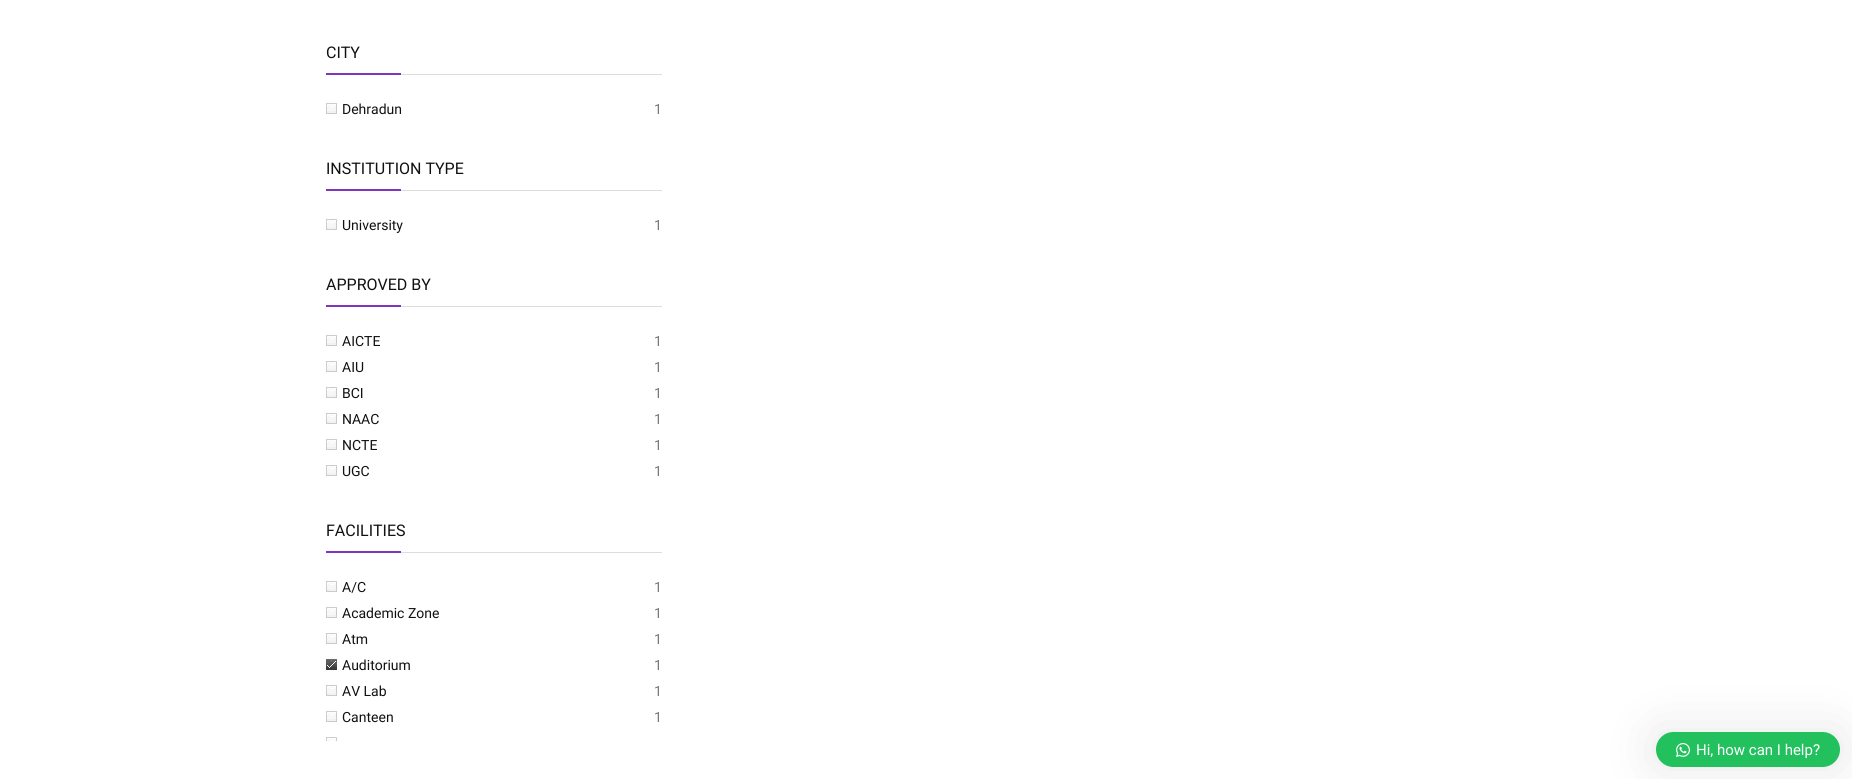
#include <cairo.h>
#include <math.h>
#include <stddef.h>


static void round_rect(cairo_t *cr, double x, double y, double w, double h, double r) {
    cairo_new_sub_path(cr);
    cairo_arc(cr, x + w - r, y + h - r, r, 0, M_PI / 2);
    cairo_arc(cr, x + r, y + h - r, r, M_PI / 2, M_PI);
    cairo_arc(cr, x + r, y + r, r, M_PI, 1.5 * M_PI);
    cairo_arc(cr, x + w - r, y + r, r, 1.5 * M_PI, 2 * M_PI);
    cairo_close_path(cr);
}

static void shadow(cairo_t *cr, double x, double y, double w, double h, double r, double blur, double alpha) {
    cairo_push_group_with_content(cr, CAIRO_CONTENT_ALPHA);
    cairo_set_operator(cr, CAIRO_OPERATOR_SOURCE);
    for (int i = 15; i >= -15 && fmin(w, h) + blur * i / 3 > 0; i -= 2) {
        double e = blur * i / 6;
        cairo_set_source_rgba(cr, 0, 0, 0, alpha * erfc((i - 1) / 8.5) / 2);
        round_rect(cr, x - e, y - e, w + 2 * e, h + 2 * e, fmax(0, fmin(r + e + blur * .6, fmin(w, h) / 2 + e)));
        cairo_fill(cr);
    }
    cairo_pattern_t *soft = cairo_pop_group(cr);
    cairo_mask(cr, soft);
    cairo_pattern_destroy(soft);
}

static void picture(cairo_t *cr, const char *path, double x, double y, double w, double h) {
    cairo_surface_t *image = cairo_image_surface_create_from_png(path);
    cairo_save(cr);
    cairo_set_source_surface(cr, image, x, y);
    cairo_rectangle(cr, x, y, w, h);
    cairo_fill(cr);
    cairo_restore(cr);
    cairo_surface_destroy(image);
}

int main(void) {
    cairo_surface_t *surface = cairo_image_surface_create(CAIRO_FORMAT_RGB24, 1852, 779);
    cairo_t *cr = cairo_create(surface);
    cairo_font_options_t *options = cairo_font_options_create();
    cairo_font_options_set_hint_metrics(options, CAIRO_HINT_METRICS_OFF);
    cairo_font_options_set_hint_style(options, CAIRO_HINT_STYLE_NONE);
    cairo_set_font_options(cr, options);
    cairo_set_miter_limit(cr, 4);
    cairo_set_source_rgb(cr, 1, 1, 1);
    cairo_paint(cr);
    cairo_set_source_rgb(cr, 0.867, 0.867, 0.867);
    cairo_rectangle(cr, 401, 74, 261, 1);
    cairo_fill(cr);
    cairo_select_font_face(cr, "Roboto", CAIRO_FONT_SLANT_NORMAL, CAIRO_FONT_WEIGHT_NORMAL);
    cairo_set_font_size(cr, 16);
    cairo_set_source_rgb(cr, 0.067, 0.067, 0.067);
    cairo_move_to(cr, 326, 58);
    cairo_show_text(cr, "CITY");
    cairo_set_source_rgb(cr, 0.502, 0.208, 0.745);
    cairo_rectangle(cr, 326, 73, 75, 2);
    cairo_fill(cr);
    picture(cr, "img1.png", 326, 103, 11, 11);
    cairo_set_font_size(cr, 14);
    cairo_set_source_rgb(cr, 0.067, 0.067, 0.067);
    cairo_move_to(cr, 342, 114);
    cairo_show_text(cr, "Dehradun");
    cairo_set_source_rgb(cr, 0.467, 0.467, 0.467);
    cairo_move_to(cr, 654, 114);
    cairo_show_text(cr, "1");
    cairo_set_source_rgb(cr, 0.867, 0.867, 0.867);
    cairo_rectangle(cr, 401, 190, 261, 1);
    cairo_fill(cr);
    cairo_set_font_size(cr, 16);
    cairo_set_source_rgb(cr, 0.067, 0.067, 0.067);
    cairo_move_to(cr, 326, 174);
    cairo_show_text(cr, "INSTITUTION TYPE");
    cairo_set_source_rgb(cr, 0.502, 0.208, 0.745);
    cairo_rectangle(cr, 326, 189, 75, 2);
    cairo_fill(cr);
    picture(cr, "img1.png", 326, 219, 11, 11);
    cairo_set_font_size(cr, 14);
    cairo_set_source_rgb(cr, 0.067, 0.067, 0.067);
    cairo_move_to(cr, 342, 230);
    cairo_show_text(cr, "University");
    cairo_set_source_rgb(cr, 0.467, 0.467, 0.467);
    cairo_move_to(cr, 654, 230);
    cairo_show_text(cr, "1");
    cairo_set_source_rgb(cr, 0.867, 0.867, 0.867);
    cairo_rectangle(cr, 401, 306, 261, 1);
    cairo_fill(cr);
    cairo_set_font_size(cr, 16);
    cairo_set_source_rgb(cr, 0.067, 0.067, 0.067);
    cairo_move_to(cr, 326, 290);
    cairo_show_text(cr, "APPROVED BY");
    cairo_set_source_rgb(cr, 0.502, 0.208, 0.745);
    cairo_rectangle(cr, 326, 305, 75, 2);
    cairo_fill(cr);
    picture(cr, "img1.png", 326, 335, 11, 11);
    cairo_set_font_size(cr, 14);
    cairo_set_source_rgb(cr, 0.067, 0.067, 0.067);
    cairo_move_to(cr, 342, 346);
    cairo_show_text(cr, "AICTE");
    cairo_set_source_rgb(cr, 0.467, 0.467, 0.467);
    cairo_move_to(cr, 654, 346);
    cairo_show_text(cr, "1");
    picture(cr, "img1.png", 326, 361, 11, 11);
    cairo_set_source_rgb(cr, 0.067, 0.067, 0.067);
    cairo_move_to(cr, 342, 372);
    cairo_show_text(cr, "AIU");
    cairo_set_source_rgb(cr, 0.467, 0.467, 0.467);
    cairo_move_to(cr, 654, 372);
    cairo_show_text(cr, "1");
    picture(cr, "img1.png", 326, 387, 11, 11);
    cairo_set_source_rgb(cr, 0.067, 0.067, 0.067);
    cairo_move_to(cr, 342, 398);
    cairo_show_text(cr, "BCI");
    cairo_set_source_rgb(cr, 0.467, 0.467, 0.467);
    cairo_move_to(cr, 654, 398);
    cairo_show_text(cr, "1");
    picture(cr, "img1.png", 326, 413, 11, 11);
    cairo_set_source_rgb(cr, 0.067, 0.067, 0.067);
    cairo_move_to(cr, 342, 424);
    cairo_show_text(cr, "NAAC");
    cairo_set_source_rgb(cr, 0.467, 0.467, 0.467);
    cairo_move_to(cr, 654, 424);
    cairo_show_text(cr, "1");
    picture(cr, "img1.png", 326, 439, 11, 11);
    cairo_set_source_rgb(cr, 0.067, 0.067, 0.067);
    cairo_move_to(cr, 342, 450);
    cairo_show_text(cr, "NCTE");
    cairo_set_source_rgb(cr, 0.467, 0.467, 0.467);
    cairo_move_to(cr, 654, 450);
    cairo_show_text(cr, "1");
    picture(cr, "img1.png", 326, 465, 11, 11);
    cairo_set_source_rgb(cr, 0.067, 0.067, 0.067);
    cairo_move_to(cr, 342, 476);
    cairo_show_text(cr, "UGC");
    cairo_set_source_rgb(cr, 0.467, 0.467, 0.467);
    cairo_move_to(cr, 654, 476);
    cairo_show_text(cr, "1");
    cairo_set_source_rgb(cr, 0.867, 0.867, 0.867);
    cairo_rectangle(cr, 401, 552, 261, 1);
    cairo_fill(cr);
    cairo_set_font_size(cr, 16);
    cairo_set_source_rgb(cr, 0.067, 0.067, 0.067);
    cairo_move_to(cr, 326, 536);
    cairo_show_text(cr, "FACILITIES");
    cairo_set_source_rgb(cr, 0.502, 0.208, 0.745);
    cairo_rectangle(cr, 326, 551, 75, 2);
    cairo_fill(cr);
    picture(cr, "img1.png", 326, 581, 11, 11);
    cairo_set_font_size(cr, 14);
    cairo_set_source_rgb(cr, 0.067, 0.067, 0.067);
    cairo_move_to(cr, 342, 592);
    cairo_show_text(cr, "A/C");
    cairo_set_source_rgb(cr, 0.467, 0.467, 0.467);
    cairo_move_to(cr, 654, 592);
    cairo_show_text(cr, "1");
    picture(cr, "img1.png", 326, 607, 11, 11);
    cairo_set_source_rgb(cr, 0.067, 0.067, 0.067);
    cairo_move_to(cr, 342, 618);
    cairo_show_text(cr, "Academic Zone");
    cairo_set_source_rgb(cr, 0.467, 0.467, 0.467);
    cairo_move_to(cr, 654, 618);
    cairo_show_text(cr, "1");
    picture(cr, "img1.png", 326, 633, 11, 11);
    cairo_set_source_rgb(cr, 0.067, 0.067, 0.067);
    cairo_move_to(cr, 342, 644);
    cairo_show_text(cr, "Atm");
    cairo_set_source_rgb(cr, 0.467, 0.467, 0.467);
    cairo_move_to(cr, 654, 644);
    cairo_show_text(cr, "1");
    picture(cr, "img2.png", 326, 659, 11, 11);
    cairo_set_source_rgb(cr, 0.067, 0.067, 0.067);
    cairo_move_to(cr, 342, 670);
    cairo_show_text(cr, "Auditorium");
    cairo_set_source_rgb(cr, 0.467, 0.467, 0.467);
    cairo_move_to(cr, 654, 670);
    cairo_show_text(cr, "1");
    picture(cr, "img1.png", 326, 685, 11, 11);
    cairo_set_source_rgb(cr, 0.067, 0.067, 0.067);
    cairo_move_to(cr, 342, 696);
    cairo_show_text(cr, "AV Lab");
    cairo_set_source_rgb(cr, 0.467, 0.467, 0.467);
    cairo_move_to(cr, 654, 696);
    cairo_show_text(cr, "1");
    picture(cr, "img1.png", 326, 711, 11, 11);
    cairo_set_source_rgb(cr, 0.067, 0.067, 0.067);
    cairo_move_to(cr, 342, 722);
    cairo_show_text(cr, "Canteen");
    cairo_set_source_rgb(cr, 0.467, 0.467, 0.467);
    cairo_move_to(cr, 654, 722);
    cairo_show_text(cr, "1");
    picture(cr, "img3.png", 326, 737, 11, 4);
    cairo_set_source_rgb(cr, 0, 0, 0);
    shadow(cr, 1656, 732, 184, 35, 17.5, 25, 0.1);
    cairo_set_source_rgb(cr, 0.133, 0.757, 0.369);
    round_rect(cr, 1656, 732, 184, 35, 17.5);
    cairo_fill(cr);
    picture(cr, "img4.png", 1676, 743, 14, 14);
    cairo_set_font_size(cr, 15);
    cairo_set_source_rgb(cr, 1, 1, 1);
    cairo_move_to(cr, 1696, 755);
    cairo_show_text(cr, "Hi, how can I help?");
    cairo_surface_write_to_png(surface, "page.png");
    cairo_font_options_destroy(options);
    cairo_destroy(cr);
    cairo_surface_destroy(surface);
    return 0;
}
